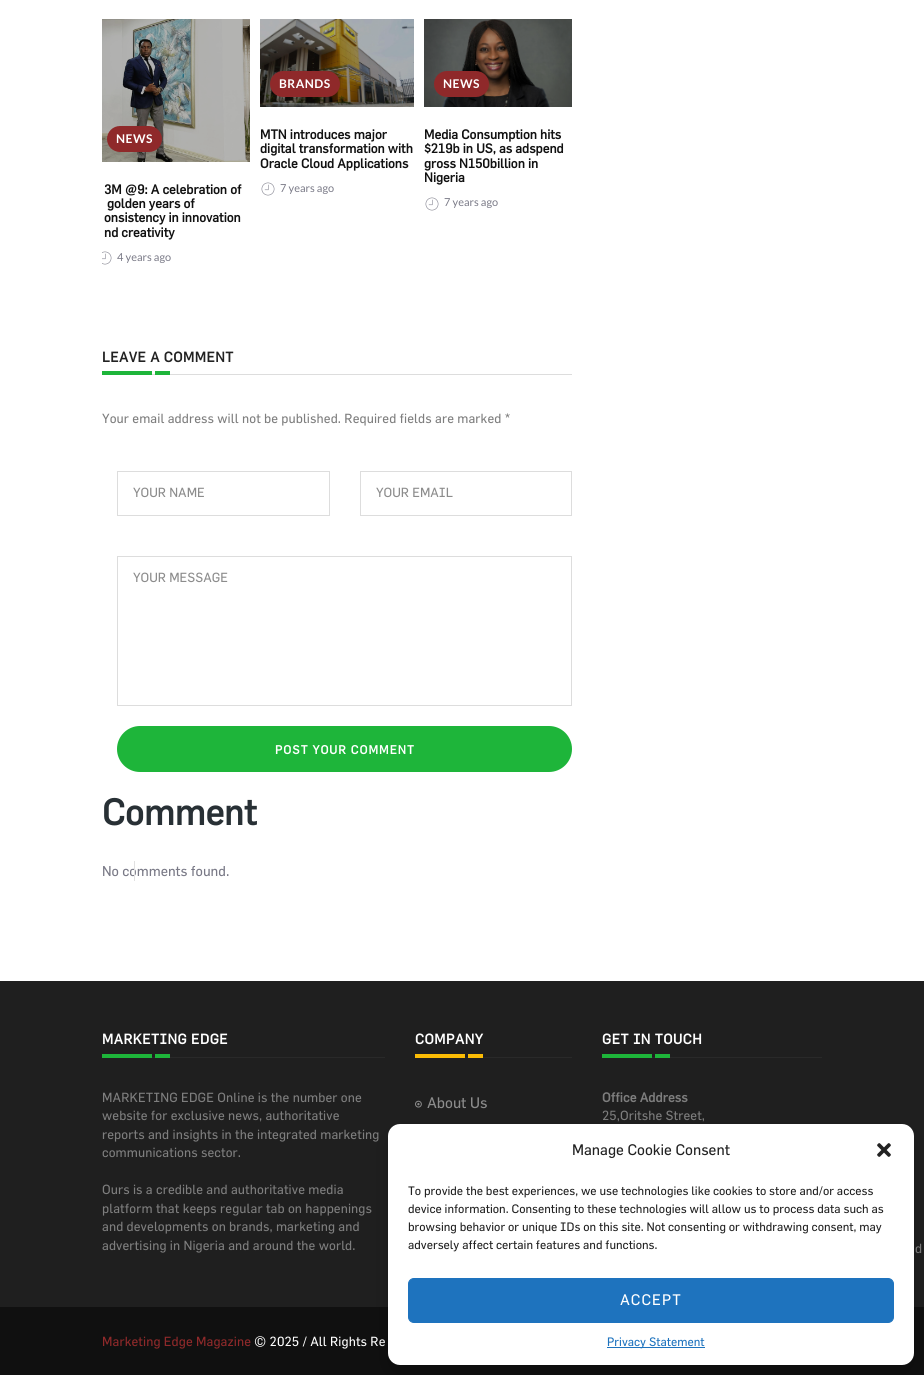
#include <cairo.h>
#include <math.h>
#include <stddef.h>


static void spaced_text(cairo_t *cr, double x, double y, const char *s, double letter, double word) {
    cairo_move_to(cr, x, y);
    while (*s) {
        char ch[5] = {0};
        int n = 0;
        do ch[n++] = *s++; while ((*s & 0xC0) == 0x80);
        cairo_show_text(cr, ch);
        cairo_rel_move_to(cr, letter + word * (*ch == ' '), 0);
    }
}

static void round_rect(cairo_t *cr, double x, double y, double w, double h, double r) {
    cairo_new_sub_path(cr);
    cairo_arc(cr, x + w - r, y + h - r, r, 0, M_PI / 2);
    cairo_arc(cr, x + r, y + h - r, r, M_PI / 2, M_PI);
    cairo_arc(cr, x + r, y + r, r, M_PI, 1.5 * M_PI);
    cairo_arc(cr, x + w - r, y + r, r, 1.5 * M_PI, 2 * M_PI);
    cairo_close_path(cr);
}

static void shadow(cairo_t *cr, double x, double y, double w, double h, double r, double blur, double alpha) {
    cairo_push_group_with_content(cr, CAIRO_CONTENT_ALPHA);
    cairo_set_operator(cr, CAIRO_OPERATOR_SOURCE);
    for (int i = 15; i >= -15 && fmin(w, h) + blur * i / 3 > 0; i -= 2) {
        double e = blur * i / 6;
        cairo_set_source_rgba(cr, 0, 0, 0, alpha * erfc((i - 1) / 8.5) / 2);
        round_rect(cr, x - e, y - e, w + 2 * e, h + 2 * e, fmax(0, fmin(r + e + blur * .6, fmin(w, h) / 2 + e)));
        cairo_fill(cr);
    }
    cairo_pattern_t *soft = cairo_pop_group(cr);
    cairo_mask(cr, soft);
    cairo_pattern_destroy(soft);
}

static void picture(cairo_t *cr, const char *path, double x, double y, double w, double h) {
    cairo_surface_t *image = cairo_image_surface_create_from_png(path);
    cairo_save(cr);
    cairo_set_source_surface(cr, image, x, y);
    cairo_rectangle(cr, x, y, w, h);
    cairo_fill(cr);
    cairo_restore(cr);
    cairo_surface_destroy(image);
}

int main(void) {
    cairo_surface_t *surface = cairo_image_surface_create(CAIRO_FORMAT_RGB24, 924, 1375);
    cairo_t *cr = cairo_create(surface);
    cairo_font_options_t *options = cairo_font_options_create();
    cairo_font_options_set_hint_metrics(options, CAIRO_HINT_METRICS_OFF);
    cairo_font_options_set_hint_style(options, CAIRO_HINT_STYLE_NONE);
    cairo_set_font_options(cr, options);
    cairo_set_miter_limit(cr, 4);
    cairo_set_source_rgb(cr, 1, 1, 1);
    cairo_paint(cr);
    picture(cr, "img1.png", 102, 19, 148, 143);
    cairo_set_source_rgb(cr, 0.561, 0.161, 0.165);
    round_rect(cr, 107, 126, 55, 26, 13);
    cairo_fill(cr);
    cairo_select_font_face(cr, "Lato", CAIRO_FONT_SLANT_NORMAL, CAIRO_FONT_WEIGHT_BOLD);
    cairo_set_font_size(cr, 12);
    cairo_set_source_rgb(cr, 1, 1, 1);
    spaced_text(cr, 116, 143, "NEWS", 0.5, 0);
    cairo_select_font_face(cr, "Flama", CAIRO_FONT_SLANT_NORMAL, CAIRO_FONT_WEIGHT_BOLD);
    cairo_set_font_size(cr, 13);
    cairo_set_source_rgb(cr, 0.067, 0.067, 0.067);
    cairo_move_to(cr, 104, 194);
    cairo_show_text(cr, "3M @9: A celebration of");
    cairo_move_to(cr, 107, 208);
    cairo_show_text(cr, "golden years of");
    cairo_move_to(cr, 104, 222);
    cairo_show_text(cr, "onsistency in innovation");
    cairo_move_to(cr, 104, 237);
    cairo_show_text(cr, "nd creativity");
    picture(cr, "img2.png", 102, 251, 10, 14);
    cairo_select_font_face(cr, "Lato", CAIRO_FONT_SLANT_NORMAL, CAIRO_FONT_WEIGHT_NORMAL);
    cairo_set_font_size(cr, 11);
    cairo_set_source_rgb(cr, 0.475, 0.475, 0.525);
    cairo_move_to(cr, 117, 261);
    cairo_show_text(cr, "4 years ago");
    picture(cr, "img3.png", 260, 19, 154, 88);
    cairo_set_source_rgb(cr, 0.561, 0.161, 0.165);
    round_rect(cr, 270, 71, 70, 26, 13);
    cairo_fill(cr);
    cairo_select_font_face(cr, "Lato", CAIRO_FONT_SLANT_NORMAL, CAIRO_FONT_WEIGHT_BOLD);
    cairo_set_font_size(cr, 12);
    cairo_set_source_rgb(cr, 1, 1, 1);
    spaced_text(cr, 279, 88, "BRANDS", 0.5, 0);
    cairo_select_font_face(cr, "Flama", CAIRO_FONT_SLANT_NORMAL, CAIRO_FONT_WEIGHT_BOLD);
    cairo_set_font_size(cr, 13);
    cairo_set_source_rgb(cr, 0.067, 0.067, 0.067);
    cairo_move_to(cr, 260, 139);
    cairo_show_text(cr, "MTN introduces major");
    cairo_move_to(cr, 260, 153);
    cairo_show_text(cr, "digital transformation with");
    cairo_move_to(cr, 260, 168);
    cairo_show_text(cr, "Oracle Cloud Applications");
    picture(cr, "img4.png", 261, 182, 14, 14);
    cairo_select_font_face(cr, "Lato", CAIRO_FONT_SLANT_NORMAL, CAIRO_FONT_WEIGHT_NORMAL);
    cairo_set_font_size(cr, 11);
    cairo_set_source_rgb(cr, 0.475, 0.475, 0.525);
    cairo_move_to(cr, 280, 192);
    cairo_show_text(cr, "7 years ago");
    picture(cr, "img5.png", 424, 19, 148, 88);
    cairo_set_source_rgb(cr, 0.561, 0.161, 0.165);
    round_rect(cr, 434, 71, 55, 26, 13);
    cairo_fill(cr);
    cairo_select_font_face(cr, "Lato", CAIRO_FONT_SLANT_NORMAL, CAIRO_FONT_WEIGHT_BOLD);
    cairo_set_font_size(cr, 12);
    cairo_set_source_rgb(cr, 1, 1, 1);
    spaced_text(cr, 443, 88, "NEWS", 0.5, 0);
    cairo_select_font_face(cr, "Flama", CAIRO_FONT_SLANT_NORMAL, CAIRO_FONT_WEIGHT_BOLD);
    cairo_set_font_size(cr, 13);
    cairo_set_source_rgb(cr, 0.067, 0.067, 0.067);
    cairo_move_to(cr, 424, 139);
    cairo_show_text(cr, "Media Consumption hits");
    cairo_move_to(cr, 424, 153);
    cairo_show_text(cr, "$219b in US, as adspend");
    cairo_move_to(cr, 424, 168);
    cairo_show_text(cr, "gross N150billion in");
    cairo_move_to(cr, 424, 182);
    cairo_show_text(cr, "Nigeria");
    picture(cr, "img4.png", 425, 197, 14, 14);
    cairo_select_font_face(cr, "Lato", CAIRO_FONT_SLANT_NORMAL, CAIRO_FONT_WEIGHT_NORMAL);
    cairo_set_font_size(cr, 11);
    cairo_set_source_rgb(cr, 0.475, 0.475, 0.525);
    cairo_move_to(cr, 444, 206);
    cairo_show_text(cr, "7 years ago");
    cairo_select_font_face(cr, "Flama", CAIRO_FONT_SLANT_NORMAL, CAIRO_FONT_WEIGHT_BOLD);
    cairo_set_font_size(cr, 14);
    cairo_set_source_rgb(cr, 0.133, 0.133, 0.133);
    spaced_text(cr, 102, 362, "LEAVE A COMMENT", 0.5, 0);
    cairo_set_source_rgb(cr, 0.867, 0.867, 0.867);
    cairo_rectangle(cr, 152, 374, 420, 1);
    cairo_fill(cr);
    cairo_set_source_rgb(cr, 0.118, 0.71, 0.227);
    cairo_rectangle(cr, 102, 371, 50, 4);
    cairo_fill(cr);
    cairo_rectangle(cr, 155, 371, 15, 4);
    cairo_fill(cr);
    cairo_select_font_face(cr, "Flama Medium", CAIRO_FONT_SLANT_NORMAL, CAIRO_FONT_WEIGHT_NORMAL);
    cairo_set_font_size(cr, 13);
    cairo_set_source_rgb(cr, 0.494, 0.494, 0.494);
    spaced_text(cr, 102, 423, "Your email address will not be published. Required fields are marked *", 0.1, 0);
    cairo_rectangle(cr, 117.5, 471.5, 212, 44);
    cairo_set_source_rgb(cr, 0.867, 0.867, 0.867);
    cairo_set_line_width(cr, 1);
    cairo_stroke(cr);
    cairo_set_source_rgb(cr, 0.549, 0.549, 0.549);
    cairo_move_to(cr, 133, 497);
    cairo_show_text(cr, "YOUR NAME");
    cairo_rectangle(cr, 360.5, 471.5, 211, 44);
    cairo_set_source_rgb(cr, 0.867, 0.867, 0.867);
    cairo_stroke(cr);
    cairo_set_source_rgb(cr, 0.549, 0.549, 0.549);
    cairo_move_to(cr, 376, 497);
    cairo_show_text(cr, "YOUR EMAIL");
    cairo_rectangle(cr, 117.5, 556.5, 454, 149);
    cairo_set_source_rgb(cr, 0.867, 0.867, 0.867);
    cairo_stroke(cr);
    cairo_set_source_rgb(cr, 0.549, 0.549, 0.549);
    cairo_move_to(cr, 133, 582);
    cairo_show_text(cr, "YOUR MESSAGE");
    cairo_set_source_rgb(cr, 0.118, 0.71, 0.227);
    round_rect(cr, 118, 727, 453, 44, 22);
    cairo_fill_preserve(cr);
    cairo_set_line_width(cr, 2);
    cairo_stroke(cr);
    cairo_select_font_face(cr, "Flama", CAIRO_FONT_SLANT_NORMAL, CAIRO_FONT_WEIGHT_BOLD);
    cairo_set_font_size(cr, 12);
    cairo_set_source_rgb(cr, 1, 1, 1);
    spaced_text(cr, 275, 754, "POST YOUR COMMENT", 1, 0);
    cairo_set_font_size(cr, 36);
    cairo_set_source_rgb(cr, 0.157, 0.188, 0.208);
    cairo_move_to(cr, 102, 825);
    cairo_show_text(cr, "Comment");
    cairo_select_font_face(cr, "Flama Medium", CAIRO_FONT_SLANT_NORMAL, CAIRO_FONT_WEIGHT_NORMAL);
    cairo_set_font_size(cr, 14);
    cairo_set_source_rgb(cr, 0.475, 0.475, 0.525);
    cairo_move_to(cr, 102, 876);
    cairo_show_text(cr, "No comments found.");
    cairo_set_source_rgb(cr, 0.882, 0.882, 0.882);
    cairo_rectangle(cr, 134, 861, 1, 20);
    cairo_fill(cr);
    cairo_set_source_rgb(cr, 0.122, 0.122, 0.122);
    cairo_rectangle(cr, 0, 981, 924, 326);
    cairo_fill(cr);
    cairo_select_font_face(cr, "Flama", CAIRO_FONT_SLANT_NORMAL, CAIRO_FONT_WEIGHT_BOLD);
    cairo_set_source_rgb(cr, 1, 1, 1);
    spaced_text(cr, 102, 1044, "MARKETING EDGE", 0.5, 0);
    cairo_set_source_rgb(cr, 0.161, 0.161, 0.161);
    cairo_rectangle(cr, 152, 1057, 233, 1);
    cairo_fill(cr);
    cairo_set_source_rgb(cr, 0.118, 0.71, 0.227);
    cairo_rectangle(cr, 102, 1054, 50, 4);
    cairo_fill(cr);
    cairo_rectangle(cr, 155, 1054, 15, 4);
    cairo_fill(cr);
    cairo_select_font_face(cr, "Flama Medium", CAIRO_FONT_SLANT_NORMAL, CAIRO_FONT_WEIGHT_NORMAL);
    cairo_set_font_size(cr, 13);
    cairo_set_source_rgb(cr, 0.494, 0.494, 0.494);
    spaced_text(cr, 102, 1102, "MARKETING EDGE Online is the number one", 0.1, 0);
    spaced_text(cr, 102, 1120, "website for exclusive news, authoritative", 0.1, 0);
    spaced_text(cr, 102, 1139, "reports and insights in the integrated marketing", 0.1, 0);
    spaced_text(cr, 102, 1157, "communications sector.", 0.1, 0);
    spaced_text(cr, 102, 1194, "Ours is a credible and authoritative media", 0.1, 0);
    spaced_text(cr, 102, 1213, "platform that keeps regular tab on happenings", 0.1, 0);
    spaced_text(cr, 102, 1231, "and developments on brands, marketing and", 0.1, 0);
    spaced_text(cr, 102, 1250, "advertising in Nigeria and around the world.", 0.1, 0);
    cairo_select_font_face(cr, "Flama", CAIRO_FONT_SLANT_NORMAL, CAIRO_FONT_WEIGHT_BOLD);
    cairo_set_font_size(cr, 14);
    cairo_set_source_rgb(cr, 1, 1, 1);
    spaced_text(cr, 415, 1044, "COMPANY", 0.5, 0);
    cairo_set_source_rgb(cr, 0.161, 0.161, 0.161);
    cairo_rectangle(cr, 465, 1057, 107, 1);
    cairo_fill(cr);
    cairo_set_source_rgb(cr, 0.984, 0.737, 0.02);
    cairo_rectangle(cr, 415, 1054, 50, 4);
    cairo_fill(cr);
    cairo_rectangle(cr, 468, 1054, 15, 4);
    cairo_fill(cr);
    picture(cr, "img6.png", 415, 1100, 7, 8);
    cairo_select_font_face(cr, "Flama Medium", CAIRO_FONT_SLANT_NORMAL, CAIRO_FONT_WEIGHT_NORMAL);
    cairo_set_font_size(cr, 15);
    cairo_set_source_rgb(cr, 0.549, 0.549, 0.549);
    cairo_move_to(cr, 427, 1108);
    cairo_show_text(cr, "About Us");
    cairo_select_font_face(cr, "Flama", CAIRO_FONT_SLANT_NORMAL, CAIRO_FONT_WEIGHT_BOLD);
    cairo_set_font_size(cr, 14);
    cairo_set_source_rgb(cr, 1, 1, 1);
    spaced_text(cr, 602, 1044, "GET IN TOUCH", 0.5, 0);
    cairo_set_source_rgb(cr, 0.161, 0.161, 0.161);
    cairo_rectangle(cr, 652, 1057, 170, 1);
    cairo_fill(cr);
    cairo_set_source_rgb(cr, 0.118, 0.71, 0.227);
    cairo_rectangle(cr, 602, 1054, 50, 4);
    cairo_fill(cr);
    cairo_rectangle(cr, 655, 1054, 15, 4);
    cairo_fill(cr);
    cairo_set_font_size(cr, 13);
    cairo_set_source_rgb(cr, 0.494, 0.494, 0.494);
    spaced_text(cr, 602, 1102, "Office Address", 0.1, 0);
    cairo_select_font_face(cr, "Flama Medium", CAIRO_FONT_SLANT_NORMAL, CAIRO_FONT_WEIGHT_NORMAL);
    spaced_text(cr, 602, 1120, "25,Oritshe Street,", 0.1, 0);
    spaced_text(cr, 915, 1253, "d", 0.1, 0);
    cairo_set_source_rgb(cr, 0.063, 0.063, 0.063);
    cairo_rectangle(cr, 0, 1307, 924, 68);
    cairo_fill(cr);
    cairo_set_source_rgb(cr, 0.561, 0.161, 0.165);
    spaced_text(cr, 102, 1346, "Marketing Edge Magazine", 0.1, 0);
    cairo_set_source_rgb(cr, 1, 1, 1);
    spaced_text(cr, 254, 1346, "© 2025 / All Rights Re", 0.1, 0);
    cairo_set_source_rgb(cr, 0, 0, 0);
    shadow(cr, 388, 1134, 526, 241, 12, 10, 0.19);
    cairo_set_source_rgb(cr, 1, 1, 1);
    round_rect(cr, 388, 1124, 526, 241, 12);
    cairo_fill(cr);
    cairo_set_font_size(cr, 15);
    cairo_set_source_rgb(cr, 0.133, 0.133, 0.133);
    cairo_move_to(cr, 572, 1155);
    cairo_show_text(cr, "Manage Cookie Consent");
    picture(cr, "img7.png", 877, 1143, 14, 14);
    cairo_set_font_size(cr, 12);
    cairo_move_to(cr, 408, 1195);
    cairo_show_text(cr, "To provide the best experiences, we use technologies like cookies to store and/or access");
    cairo_move_to(cr, 408, 1213);
    cairo_show_text(cr, "device information. Consenting to these technologies will allow us to process data such as");
    cairo_move_to(cr, 408, 1231);
    cairo_show_text(cr, "browsing behavior or unique IDs on this site. Not consenting or withdrawing consent, may");
    cairo_move_to(cr, 408, 1249);
    cairo_show_text(cr, "adversely affect certain features and functions.");
    cairo_set_source_rgb(cr, 0.118, 0.451, 0.745);
    round_rect(cr, 408.5, 1278.5, 485, 44, 5.5);
    cairo_fill_preserve(cr);
    cairo_set_line_width(cr, 1);
    cairo_stroke(cr);
    cairo_set_font_size(cr, 15);
    cairo_set_source_rgb(cr, 1, 1, 1);
    spaced_text(cr, 620, 1305, "ACCEPT", 1, 0);
    cairo_set_source_rgb(cr, 0.118, 0.451, 0.745);
    cairo_rectangle(cr, 607, 1347, 98, 1);
    cairo_fill(cr);
    cairo_set_font_size(cr, 12);
    cairo_move_to(cr, 607, 1346);
    cairo_show_text(cr, "Privacy Statement");
    cairo_surface_write_to_png(surface, "page.png");
    cairo_font_options_destroy(options);
    cairo_destroy(cr);
    cairo_surface_destroy(surface);
    return 0;
}
